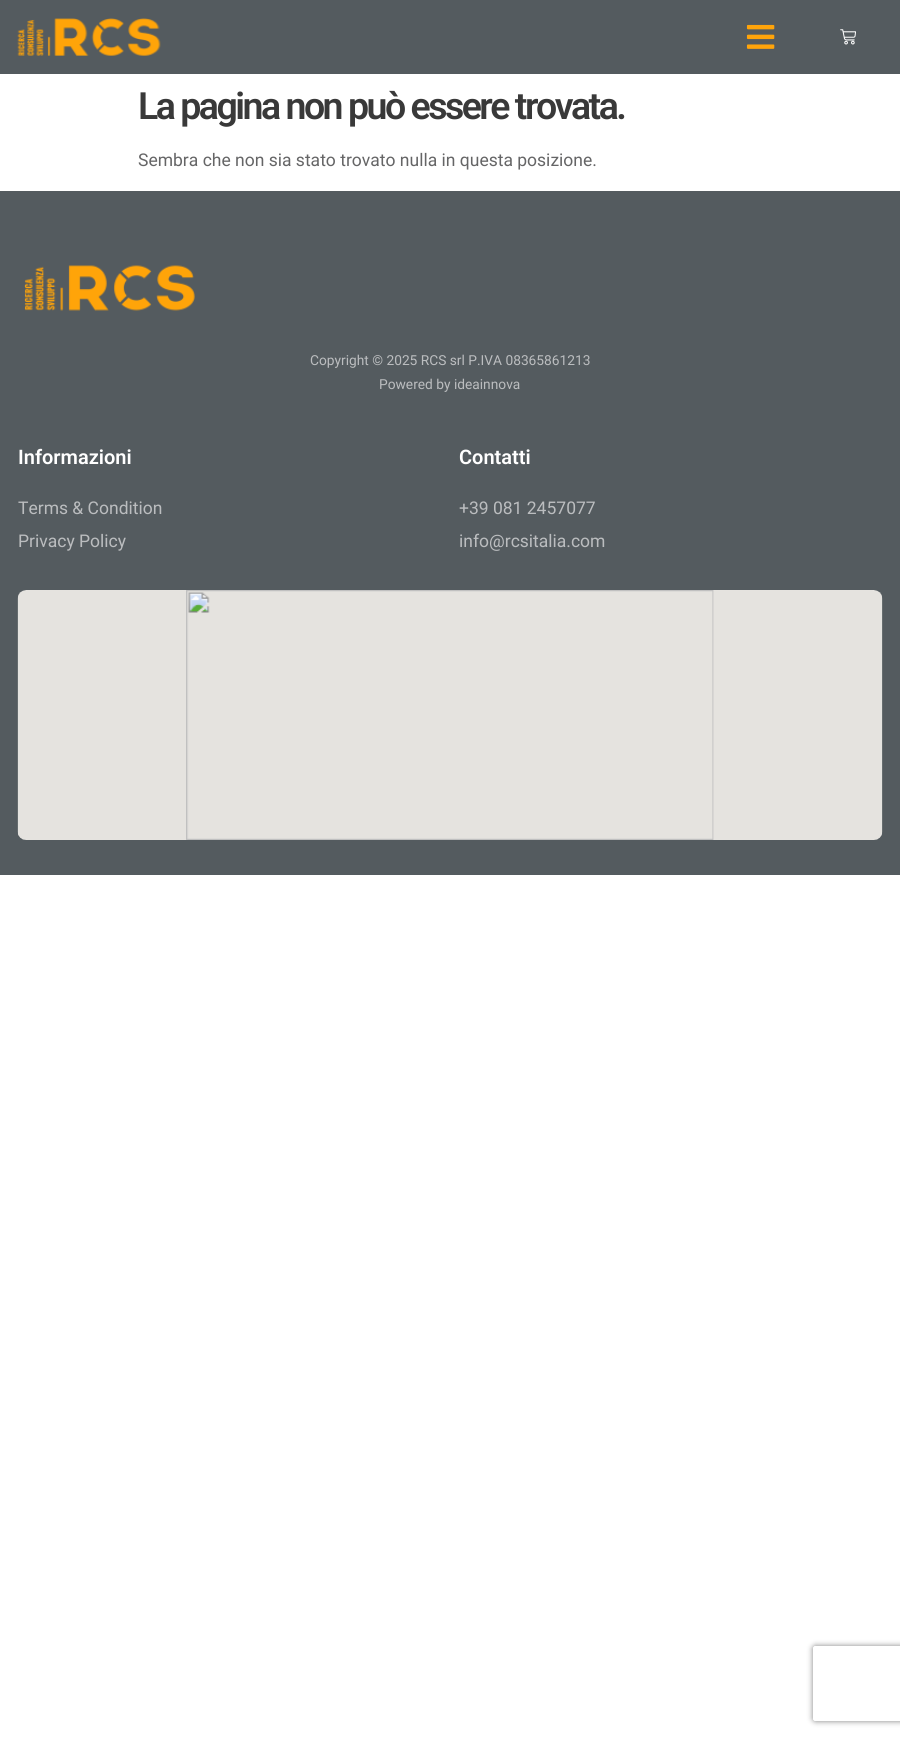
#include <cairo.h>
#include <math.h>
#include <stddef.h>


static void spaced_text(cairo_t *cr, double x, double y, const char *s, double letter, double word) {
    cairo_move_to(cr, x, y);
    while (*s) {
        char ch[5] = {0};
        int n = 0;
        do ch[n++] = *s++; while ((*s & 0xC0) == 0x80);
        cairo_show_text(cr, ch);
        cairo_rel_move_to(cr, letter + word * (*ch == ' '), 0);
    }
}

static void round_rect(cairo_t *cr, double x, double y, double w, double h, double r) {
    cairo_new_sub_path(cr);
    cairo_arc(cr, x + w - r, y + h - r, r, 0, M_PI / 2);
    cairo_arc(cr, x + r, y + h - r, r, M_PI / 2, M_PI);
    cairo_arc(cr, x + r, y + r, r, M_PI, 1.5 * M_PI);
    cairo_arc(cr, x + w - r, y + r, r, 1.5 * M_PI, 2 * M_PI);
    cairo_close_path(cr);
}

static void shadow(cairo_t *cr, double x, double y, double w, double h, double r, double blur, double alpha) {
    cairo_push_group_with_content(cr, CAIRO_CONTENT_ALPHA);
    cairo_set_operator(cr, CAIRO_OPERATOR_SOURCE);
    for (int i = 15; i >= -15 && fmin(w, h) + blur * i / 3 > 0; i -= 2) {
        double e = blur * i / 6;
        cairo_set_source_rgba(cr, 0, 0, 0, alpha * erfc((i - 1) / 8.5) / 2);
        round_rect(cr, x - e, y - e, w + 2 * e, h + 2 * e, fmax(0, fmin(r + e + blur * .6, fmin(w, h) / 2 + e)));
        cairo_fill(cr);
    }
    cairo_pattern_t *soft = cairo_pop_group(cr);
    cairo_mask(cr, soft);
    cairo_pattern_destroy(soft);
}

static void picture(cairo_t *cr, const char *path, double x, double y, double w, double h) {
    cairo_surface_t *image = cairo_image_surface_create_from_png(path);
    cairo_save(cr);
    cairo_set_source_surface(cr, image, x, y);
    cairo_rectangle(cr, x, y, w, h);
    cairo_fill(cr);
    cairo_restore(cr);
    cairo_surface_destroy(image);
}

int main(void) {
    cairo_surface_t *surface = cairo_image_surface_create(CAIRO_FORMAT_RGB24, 900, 1738);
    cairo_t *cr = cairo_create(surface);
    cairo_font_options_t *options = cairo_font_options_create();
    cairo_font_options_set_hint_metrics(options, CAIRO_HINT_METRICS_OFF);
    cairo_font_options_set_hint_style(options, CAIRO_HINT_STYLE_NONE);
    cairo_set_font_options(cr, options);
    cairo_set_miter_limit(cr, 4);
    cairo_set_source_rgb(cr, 1, 1, 1);
    cairo_paint(cr);
    cairo_set_source_rgb(cr, 0.329, 0.357, 0.373);
    cairo_rectangle(cr, 0, 0, 900, 74);
    cairo_fill(cr);
    picture(cr, "img1.png", 17, 18, 144, 38);
    picture(cr, "img2.png", 746, 24, 29, 25);
    picture(cr, "img3.png", 840, 29, 16, 16);
    cairo_select_font_face(cr, "Roboto SemiBold", CAIRO_FONT_SLANT_NORMAL, CAIRO_FONT_WEIGHT_NORMAL);
    cairo_set_font_size(cr, 37.5);
    cairo_set_source_rgb(cr, 0.224, 0.224, 0.224);
    spaced_text(cr, 138, 119, "La pagina non può essere trovata.", -2.5, 0);
    cairo_select_font_face(cr, "Roboto", CAIRO_FONT_SLANT_NORMAL, CAIRO_FONT_WEIGHT_NORMAL);
    cairo_set_font_size(cr, 17.5);
    cairo_set_source_rgb(cr, 0.396, 0.396, 0.4);
    cairo_move_to(cr, 138, 166);
    cairo_show_text(cr, "Sembra che non sia stato trovato nulla in questa posizione.");
    cairo_set_source_rgb(cr, 0.329, 0.357, 0.373);
    cairo_rectangle(cr, 0, 191, 900, 684);
    cairo_fill(cr);
    picture(cr, "img4.png", 24, 265, 171, 46);
    cairo_set_font_size(cr, 13.75);
    cairo_set_source_rgb(cr, 0.733, 0.741, 0.749);
    cairo_move_to(cr, 310, 365);
    cairo_show_text(cr, "Copyright © 2025 RCS srl P.IVA 08365861213");
    cairo_move_to(cr, 379, 389);
    cairo_show_text(cr, "Powered by ideainnova");
    cairo_select_font_face(cr, "Roboto SemiBold", CAIRO_FONT_SLANT_NORMAL, CAIRO_FONT_WEIGHT_NORMAL);
    cairo_set_font_size(cr, 20);
    cairo_set_source_rgb(cr, 1, 1, 1);
    cairo_move_to(cr, 18, 464);
    cairo_show_text(cr, "Informazioni");
    cairo_select_font_face(cr, "Roboto", CAIRO_FONT_SLANT_NORMAL, CAIRO_FONT_WEIGHT_NORMAL);
    cairo_set_font_size(cr, 17.5);
    cairo_set_source_rgb(cr, 0.733, 0.741, 0.749);
    cairo_move_to(cr, 18, 514);
    cairo_show_text(cr, "Terms & Condition");
    cairo_move_to(cr, 18, 547);
    cairo_show_text(cr, "Privacy Policy");
    cairo_select_font_face(cr, "Roboto SemiBold", CAIRO_FONT_SLANT_NORMAL, CAIRO_FONT_WEIGHT_NORMAL);
    cairo_set_font_size(cr, 20);
    cairo_set_source_rgb(cr, 1, 1, 1);
    cairo_move_to(cr, 459, 464);
    cairo_show_text(cr, "Contatti");
    cairo_select_font_face(cr, "Roboto", CAIRO_FONT_SLANT_NORMAL, CAIRO_FONT_WEIGHT_NORMAL);
    cairo_set_font_size(cr, 17.5);
    cairo_set_source_rgb(cr, 0.733, 0.741, 0.749);
    cairo_move_to(cr, 459, 514);
    cairo_show_text(cr, "+39 081 2457077");
    cairo_move_to(cr, 459, 547);
    cairo_show_text(cr, "info@rcsitalia.com");
    picture(cr, "img5.png", 17, 590, 866, 250);
    cairo_save(cr);
    cairo_set_fill_rule(cr, CAIRO_FILL_RULE_EVEN_ODD);
    cairo_new_path(cr);
    cairo_move_to(cr, 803, 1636);
    cairo_line_to(cr, 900, 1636);
    cairo_line_to(cr, 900, 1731);
    cairo_line_to(cr, 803, 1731);
    cairo_close_path(cr);
    cairo_move_to(cr, 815.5, 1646);
    cairo_line_to(cr, 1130.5, 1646);
    cairo_curve_to(cr, 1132, 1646, 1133, 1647, 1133, 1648.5);
    cairo_line_to(cr, 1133, 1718.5);
    cairo_curve_to(cr, 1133, 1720, 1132, 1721, 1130.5, 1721);
    cairo_line_to(cr, 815.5, 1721);
    cairo_curve_to(cr, 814, 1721, 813, 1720, 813, 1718.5);
    cairo_line_to(cr, 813, 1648.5);
    cairo_curve_to(cr, 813, 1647, 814, 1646, 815.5, 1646);
    cairo_close_path(cr);
    cairo_clip(cr);
    cairo_set_source_rgb(cr, 0.502, 0.502, 0.502);
    shadow(cr, 813, 1646, 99, 75, 2.5, 3, 1);
    cairo_restore(cr);
    cairo_surface_write_to_png(surface, "page.png");
    cairo_font_options_destroy(options);
    cairo_destroy(cr);
    cairo_surface_destroy(surface);
    return 0;
}
